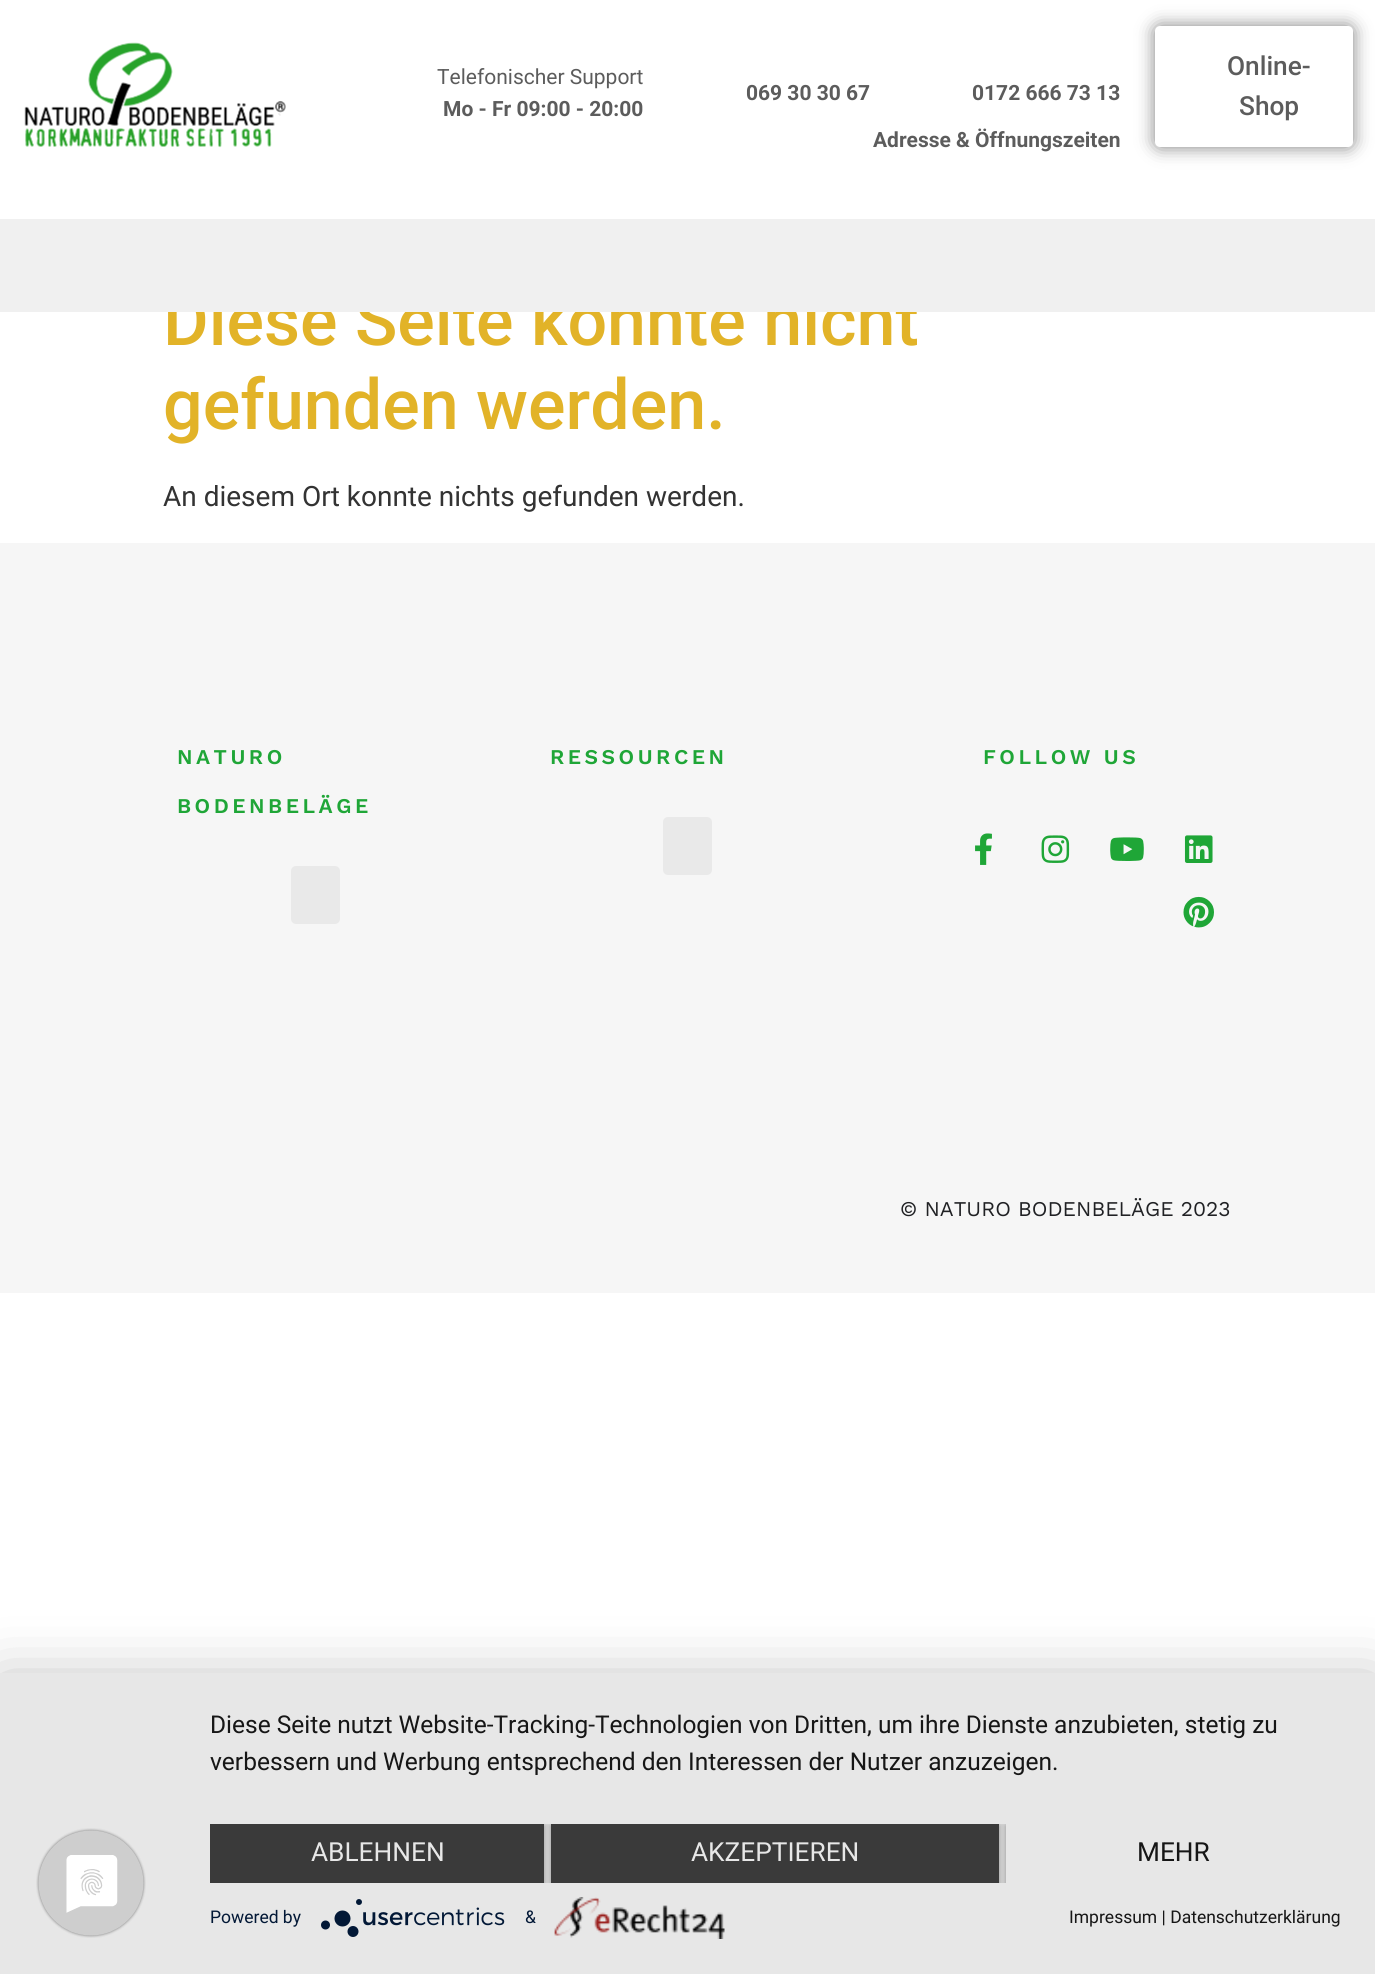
#include <cairo.h>
#include <math.h>
#include <stddef.h>


static void spaced_text(cairo_t *cr, double x, double y, const char *s, double letter, double word) {
    cairo_move_to(cr, x, y);
    while (*s) {
        char ch[5] = {0};
        int n = 0;
        do ch[n++] = *s++; while ((*s & 0xC0) == 0x80);
        cairo_show_text(cr, ch);
        cairo_rel_move_to(cr, letter + word * (*ch == ' '), 0);
    }
}

static void round_rect(cairo_t *cr, double x, double y, double w, double h, double r) {
    cairo_new_sub_path(cr);
    cairo_arc(cr, x + w - r, y + h - r, r, 0, M_PI / 2);
    cairo_arc(cr, x + r, y + h - r, r, M_PI / 2, M_PI);
    cairo_arc(cr, x + r, y + r, r, M_PI, 1.5 * M_PI);
    cairo_arc(cr, x + w - r, y + r, r, 1.5 * M_PI, 2 * M_PI);
    cairo_close_path(cr);
}

static void shadow(cairo_t *cr, double x, double y, double w, double h, double r, double blur, double alpha) {
    cairo_push_group_with_content(cr, CAIRO_CONTENT_ALPHA);
    cairo_set_operator(cr, CAIRO_OPERATOR_SOURCE);
    for (int i = 15; i >= -15 && fmin(w, h) + blur * i / 3 > 0; i -= 2) {
        double e = blur * i / 6;
        cairo_set_source_rgba(cr, 0, 0, 0, alpha * erfc((i - 1) / 8.5) / 2);
        round_rect(cr, x - e, y - e, w + 2 * e, h + 2 * e, fmax(0, fmin(r + e + blur * .6, fmin(w, h) / 2 + e)));
        cairo_fill(cr);
    }
    cairo_pattern_t *soft = cairo_pop_group(cr);
    cairo_mask(cr, soft);
    cairo_pattern_destroy(soft);
}

static void picture(cairo_t *cr, const char *path, double x, double y, double w, double h) {
    cairo_surface_t *image = cairo_image_surface_create_from_png(path);
    cairo_save(cr);
    cairo_set_source_surface(cr, image, x, y);
    cairo_rectangle(cr, x, y, w, h);
    cairo_fill(cr);
    cairo_restore(cr);
    cairo_surface_destroy(image);
}

int main(void) {
    cairo_surface_t *surface = cairo_image_surface_create(CAIRO_FORMAT_RGB24, 1375, 1974);
    cairo_t *cr = cairo_create(surface);
    cairo_font_options_t *options = cairo_font_options_create();
    cairo_font_options_set_hint_metrics(options, CAIRO_HINT_METRICS_OFF);
    cairo_font_options_set_hint_style(options, CAIRO_HINT_STYLE_NONE);
    cairo_set_font_options(cr, options);
    cairo_set_miter_limit(cr, 4);
    cairo_set_source_rgb(cr, 1, 1, 1);
    cairo_paint(cr);
    picture(cr, "img1.png", 24, 42, 262, 106);
    cairo_select_font_face(cr, "Roboto", CAIRO_FONT_SLANT_NORMAL, CAIRO_FONT_WEIGHT_NORMAL);
    cairo_set_font_size(cr, 21);
    cairo_set_source_rgb(cr, 0.361, 0.361, 0.361);
    cairo_move_to(cr, 437, 84);
    cairo_show_text(cr, "Telefonischer Support");
    cairo_select_font_face(cr, "Roboto", CAIRO_FONT_SLANT_NORMAL, CAIRO_FONT_WEIGHT_BOLD);
    cairo_move_to(cr, 443, 116);
    cairo_show_text(cr, "Mo - Fr 09:00 - 20:00");
    cairo_move_to(cr, 746, 100);
    cairo_show_text(cr, "069 30 30 67");
    cairo_move_to(cr, 972, 100);
    cairo_show_text(cr, "0172 666 73 13");
    cairo_move_to(cr, 873, 147);
    cairo_show_text(cr, "Adresse & Öffnungszeiten");
    cairo_set_source_rgb(cr, 0, 0, 0);
    shadow(cr, 1155, 26, 198, 121, 5, 9, 0.5);
    cairo_set_source_rgb(cr, 1, 1, 1);
    round_rect(cr, 1155, 26, 198, 121, 5);
    cairo_fill(cr);
    cairo_select_font_face(cr, "Roboto Medium", CAIRO_FONT_SLANT_NORMAL, CAIRO_FONT_WEIGHT_NORMAL);
    cairo_set_font_size(cr, 26.25);
    cairo_set_source_rgb(cr, 0.361, 0.361, 0.361);
    cairo_move_to(cr, 1227, 75);
    cairo_show_text(cr, "Online-");
    cairo_move_to(cr, 1239, 115);
    cairo_show_text(cr, "Shop");
    cairo_set_font_size(cr, 70);
    cairo_set_source_rgb(cr, 0.886, 0.702, 0.157);
    cairo_move_to(cr, 163, 345);
    cairo_show_text(cr, "Diese Seite konnte nicht");
    cairo_set_source_rgb(cr, 0.941, 0.941, 0.941);
    cairo_rectangle(cr, 0, 219, 1375, 93);
    cairo_fill(cr);
    cairo_set_source_rgb(cr, 0.886, 0.702, 0.157);
    cairo_move_to(cr, 163, 429);
    cairo_show_text(cr, "gefunden werden.");
    cairo_select_font_face(cr, "Roboto", CAIRO_FONT_SLANT_NORMAL, CAIRO_FONT_WEIGHT_NORMAL);
    cairo_set_font_size(cr, 28);
    cairo_set_source_rgb(cr, 0.2, 0.2, 0.2);
    cairo_move_to(cr, 163, 506);
    cairo_show_text(cr, "An diesem Ort konnte nichts gefunden werden.");
    cairo_set_source_rgb(cr, 0.961, 0.961, 0.961);
    cairo_rectangle(cr, 0, 543, 1375, 750);
    cairo_fill(cr);
    cairo_select_font_face(cr, "Work Sans SemiBold", CAIRO_FONT_SLANT_NORMAL, CAIRO_FONT_WEIGHT_NORMAL);
    cairo_set_font_size(cr, 21);
    cairo_set_source_rgb(cr, 0.122, 0.651, 0.216);
    spaced_text(cr, 177, 764, "NATURO", 3.5, 0);
    spaced_text(cr, 177, 813, "BODENBELÄGE", 3.5, 0);
    cairo_set_source_rgb(cr, 0.914, 0.914, 0.914);
    round_rect(cr, 291, 866, 49, 58, 5);
    cairo_fill(cr);
    cairo_set_source_rgb(cr, 0.122, 0.651, 0.216);
    spaced_text(cr, 550, 764, "RESSOURCEN", 3.5, 0);
    cairo_set_source_rgb(cr, 0.914, 0.914, 0.914);
    round_rect(cr, 663, 817, 49, 58, 5);
    cairo_fill(cr);
    cairo_set_source_rgb(cr, 0.122, 0.651, 0.216);
    spaced_text(cr, 983, 764, "FOLLOW US", 3.5, 0);
    picture(cr, "img2.png", 975, 833, 17, 32);
    picture(cr, "img3.png", 1041, 835, 29, 28);
    picture(cr, "img4.png", 1110, 837, 34, 24);
    picture(cr, "img5.png", 1184, 835, 29, 28);
    picture(cr, "img6.png", 1183, 896, 31, 32);
    cairo_select_font_face(cr, "Work Sans", CAIRO_FONT_SLANT_NORMAL, CAIRO_FONT_WEIGHT_NORMAL);
    cairo_set_source_rgb(cr, 0.125, 0.129, 0.141);
    cairo_move_to(cr, 900, 1216);
    cairo_show_text(cr, "© NATURO BODENBELÄGE 2023");
    cairo_set_source_rgb(cr, 0, 0, 0);
    shadow(cr, 0, 1684, 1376, 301, 0, 31.5, 0.3);
    cairo_set_source_rgb(cr, 0.906, 0.906, 0.906);
    cairo_rectangle(cr, 0, 1673, 1375, 301);
    cairo_fill(cr);
    picture(cr, "img7.png", 36, 1828, 110, 110);
    cairo_select_font_face(cr, "Roboto", CAIRO_FONT_SLANT_NORMAL, CAIRO_FONT_WEIGHT_NORMAL);
    cairo_set_font_size(cr, 24.5);
    cairo_set_source_rgb(cr, 0.086, 0.086, 0.086);
    cairo_move_to(cr, 210, 1733);
    cairo_show_text(cr, "Diese Seite nutzt Website-Tracking-Technologien von Dritten, um ihre Dienste anzubieten, stetig zu");
    cairo_move_to(cr, 210, 1770);
    cairo_show_text(cr, "verbessern und Werbung entsprechend den Interessen der Nutzer anzuzeigen.");
    cairo_save(cr);
    cairo_rectangle(cr, 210, 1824, 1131, 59);
    cairo_clip(cr);
    cairo_set_source_rgb(cr, 0, 0, 0);
    shadow(cr, 210, 1825, 334, 60, 0, 3.5, 0.4);
    cairo_restore(cr);
    cairo_set_source_rgb(cr, 0.227, 0.227, 0.227);
    cairo_rectangle(cr, 210, 1824, 334, 59);
    cairo_fill(cr);
    cairo_set_font_size(cr, 26.25);
    cairo_set_source_rgb(cr, 0.906, 0.906, 0.906);
    cairo_move_to(cr, 311, 1861);
    cairo_show_text(cr, "ABLEHNEN");
    cairo_save(cr);
    cairo_rectangle(cr, 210, 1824, 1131, 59);
    cairo_clip(cr);
    cairo_set_source_rgb(cr, 0, 0, 0);
    shadow(cr, 551, 1825, 448, 60, 0, 3.5, 0.4);
    cairo_restore(cr);
    cairo_set_source_rgb(cr, 0.227, 0.227, 0.227);
    cairo_rectangle(cr, 551, 1824, 448, 59);
    cairo_fill(cr);
    cairo_set_source_rgb(cr, 0.906, 0.906, 0.906);
    cairo_move_to(cr, 691, 1861);
    cairo_show_text(cr, "AKZEPTIEREN");
    cairo_save(cr);
    cairo_rectangle(cr, 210, 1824, 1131, 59);
    cairo_clip(cr);
    cairo_set_source_rgb(cr, 0, 0, 0);
    shadow(cr, 1006, 1825, 335, 60, 0, 3.5, 0.4);
    cairo_restore(cr);
    cairo_rectangle(cr, 1006, 1824, 335, 59);
    cairo_fill(cr);
    cairo_set_source_rgb(cr, 0.086, 0.086, 0.086);
    cairo_move_to(cr, 1137, 1861);
    cairo_show_text(cr, "MEHR");
    cairo_set_font_size(cr, 17.5);
    cairo_set_source_rgb(cr, 0.008, 0.094, 0.212);
    cairo_move_to(cr, 210, 1923);
    cairo_show_text(cr, "Powered by");
    picture(cr, "img8.png", 321, 1899, 184, 38);
    cairo_move_to(cr, 525, 1923);
    cairo_show_text(cr, "&");
    picture(cr, "img9.png", 554, 1897, 171, 42);
    cairo_set_source_rgb(cr, 0.086, 0.086, 0.086);
    cairo_move_to(cr, 1069, 1923);
    cairo_show_text(cr, "Impressum | Datenschutzerklärung");
    cairo_surface_write_to_png(surface, "page.png");
    cairo_font_options_destroy(options);
    cairo_destroy(cr);
    cairo_surface_destroy(surface);
    return 0;
}
